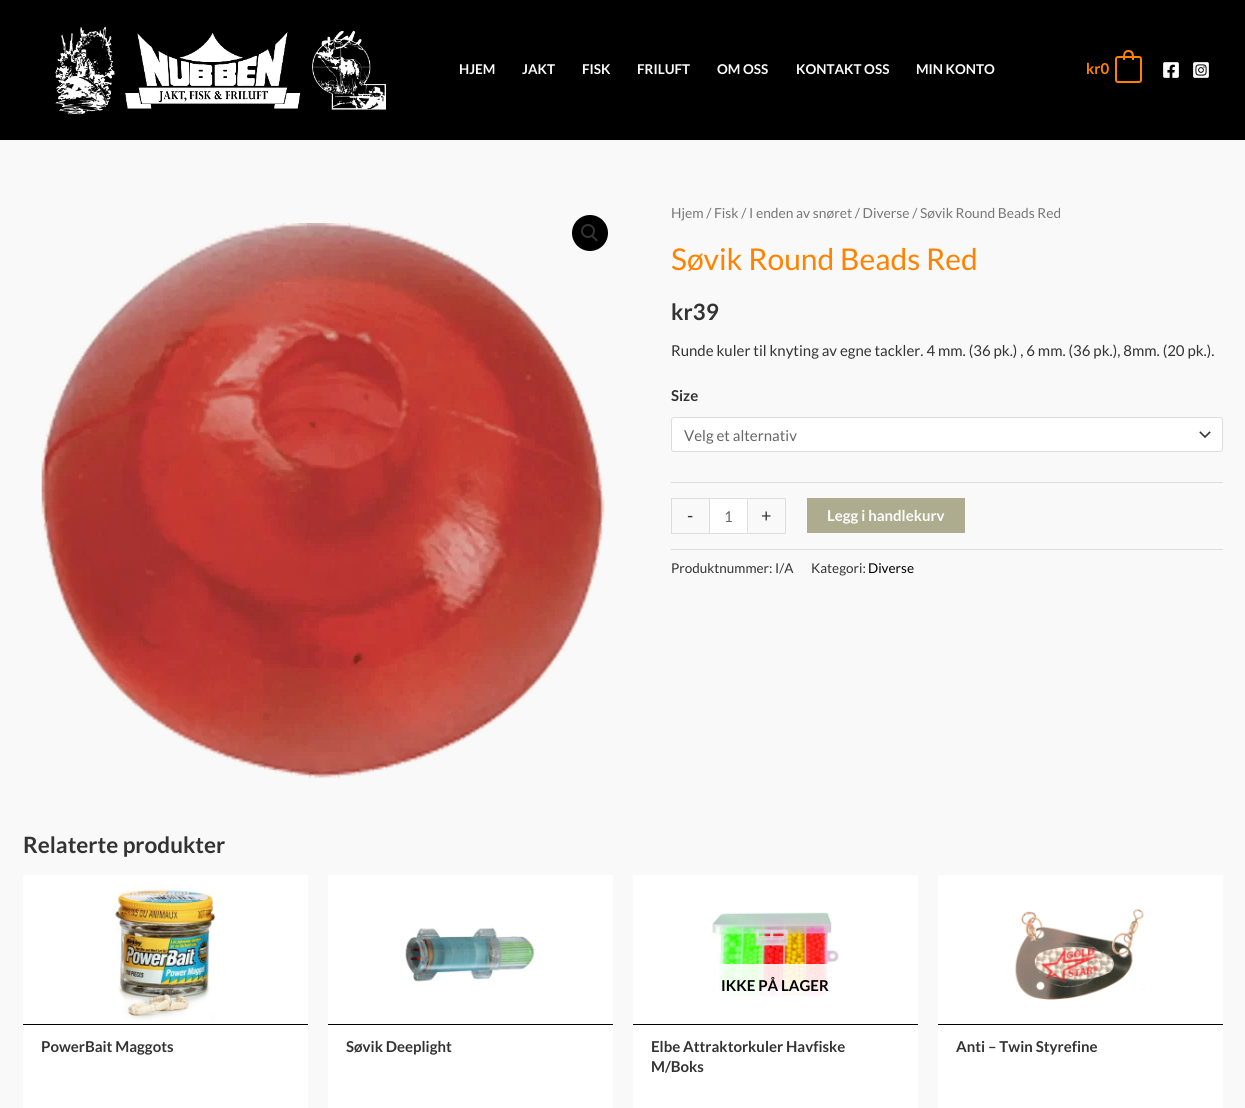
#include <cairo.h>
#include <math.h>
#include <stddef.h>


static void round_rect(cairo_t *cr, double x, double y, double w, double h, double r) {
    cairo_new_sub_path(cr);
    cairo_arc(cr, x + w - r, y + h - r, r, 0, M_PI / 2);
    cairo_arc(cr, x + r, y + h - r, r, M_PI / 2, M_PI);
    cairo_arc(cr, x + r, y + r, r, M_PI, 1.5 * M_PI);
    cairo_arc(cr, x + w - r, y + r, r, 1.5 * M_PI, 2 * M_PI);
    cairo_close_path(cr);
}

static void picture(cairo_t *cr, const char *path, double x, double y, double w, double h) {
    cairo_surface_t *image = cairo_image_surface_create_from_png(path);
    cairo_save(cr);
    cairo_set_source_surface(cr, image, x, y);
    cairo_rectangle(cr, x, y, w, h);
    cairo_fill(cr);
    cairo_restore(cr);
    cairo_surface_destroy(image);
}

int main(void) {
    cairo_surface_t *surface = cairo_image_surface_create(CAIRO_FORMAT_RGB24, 1245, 1108);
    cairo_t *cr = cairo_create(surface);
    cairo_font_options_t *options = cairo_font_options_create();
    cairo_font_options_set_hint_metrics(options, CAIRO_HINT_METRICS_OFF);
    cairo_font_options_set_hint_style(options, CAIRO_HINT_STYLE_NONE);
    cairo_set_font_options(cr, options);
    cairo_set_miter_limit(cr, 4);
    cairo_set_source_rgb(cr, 0.976, 0.976, 0.976);
    cairo_paint(cr);
    cairo_set_source_rgb(cr, 0, 0, 0);
    cairo_rectangle(cr, 0, 0, 1245, 140);
    cairo_fill(cr);
    picture(cr, "img1.png", 55, 26, 331, 89);
    cairo_select_font_face(cr, "Lato", CAIRO_FONT_SLANT_NORMAL, CAIRO_FONT_WEIGHT_BOLD);
    cairo_set_font_size(cr, 13.5);
    cairo_set_source_rgb(cr, 0.988, 0.988, 0.988);
    cairo_move_to(cr, 459, 74);
    cairo_show_text(cr, "HJEM");
    cairo_move_to(cr, 522, 74);
    cairo_show_text(cr, "JAKT");
    cairo_move_to(cr, 582, 74);
    cairo_show_text(cr, "FISK");
    cairo_move_to(cr, 637, 74);
    cairo_show_text(cr, "FRILUFT");
    cairo_move_to(cr, 717, 74);
    cairo_show_text(cr, "OM OSS");
    cairo_move_to(cr, 796, 74);
    cairo_show_text(cr, "KONTAKT OSS");
    cairo_move_to(cr, 916, 74);
    cairo_show_text(cr, "MIN KONTO");
    cairo_set_font_size(cr, 15);
    cairo_set_source_rgb(cr, 1, 0.51, 0);
    cairo_move_to(cr, 1086, 74);
    cairo_show_text(cr, "kr0");
    round_rect(cr, 1116, 57, 25, 25, 2);
    cairo_stroke(cr);
    cairo_set_fill_rule(cr, CAIRO_FILL_RULE_EVEN_ODD);
    cairo_new_path(cr);
    cairo_move_to(cr, 1128.5, 50);
    cairo_curve_to(cr, 1134.5, 50, 1134, 56, 1134, 60);
    cairo_line_to(cr, 1123, 60);
    cairo_curve_to(cr, 1123, 56, 1122.5, 50, 1128.5, 50);
    cairo_close_path(cr);
    cairo_move_to(cr, 1128.5, 52);
    cairo_curve_to(cr, 1132.5, 52, 1132, 57, 1132, 60);
    cairo_line_to(cr, 1125, 60);
    cairo_curve_to(cr, 1125, 57, 1124, 52, 1128.5, 52);
    cairo_close_path(cr);
    cairo_fill(cr);
    picture(cr, "img2.png", 1163, 62, 16, 16);
    picture(cr, "img3.png", 1193, 62, 16, 16);
    picture(cr, "img4.png", 41, 223, 564, 555);
    cairo_set_source_rgb(cr, 0, 0, 0);
    cairo_arc(cr, 590, 233, 18, 0, 2 * M_PI);
    cairo_fill(cr);
    cairo_arc(cr, 588, 231, 6, 0, 2 * M_PI);
    cairo_set_source_rgb(cr, 0.2, 0.2, 0.2);
    cairo_stroke(cr);
    cairo_set_fill_rule(cr, CAIRO_FILL_RULE_WINDING);
    cairo_new_path(cr);
    cairo_move_to(cr, 591.5, 235.5);
    cairo_curve_to(cr, 593, 234, 594.5, 237, 595, 237.5);
    cairo_curve_to(cr, 596, 238, 598.5, 240, 597.5, 241);
    cairo_curve_to(cr, 596, 242, 594.5, 239.5, 594, 239);
    cairo_curve_to(cr, 593, 238.5, 590.5, 236.5, 591.5, 235.5);
    cairo_close_path(cr);
    cairo_fill(cr);
    cairo_select_font_face(cr, "Lato", CAIRO_FONT_SLANT_NORMAL, CAIRO_FONT_WEIGHT_NORMAL);
    cairo_set_font_size(cr, 13.8);
    cairo_set_source_rgb(cr, 0.467, 0.467, 0.467);
    cairo_move_to(cr, 671, 218);
    cairo_show_text(cr, "Hjem / Fisk / I enden av snøret / Diverse / Søvik Round Beads Red");
    cairo_set_font_size(cr, 30);
    cairo_set_source_rgb(cr, 1, 0.51, 0);
    cairo_move_to(cr, 671, 270);
    cairo_show_text(cr, "Søvik Round Beads Red");
    cairo_select_font_face(cr, "Lato", CAIRO_FONT_SLANT_NORMAL, CAIRO_FONT_WEIGHT_BOLD);
    cairo_set_font_size(cr, 22.5);
    cairo_set_source_rgb(cr, 0.2, 0.2, 0.2);
    cairo_move_to(cr, 671, 320);
    cairo_show_text(cr, "kr39");
    cairo_select_font_face(cr, "Lato", CAIRO_FONT_SLANT_NORMAL, CAIRO_FONT_WEIGHT_NORMAL);
    cairo_set_font_size(cr, 15);
    cairo_move_to(cr, 671, 356);
    cairo_show_text(cr, "Runde kuler til knyting av egne tackler. 4 mm. (36 pk.) , 6 mm. (36 pk.), 8mm. (20 pk.).");
    cairo_set_source_rgb(cr, 0.867, 0.867, 0.867);
    cairo_rectangle(cr, 671, 482, 552, 1);
    cairo_fill(cr);
    cairo_select_font_face(cr, "Lato", CAIRO_FONT_SLANT_NORMAL, CAIRO_FONT_WEIGHT_BOLD);
    cairo_set_source_rgb(cr, 0.2, 0.2, 0.2);
    cairo_move_to(cr, 671, 401);
    cairo_show_text(cr, "Size");
    cairo_set_source_rgb(cr, 1, 1, 1);
    round_rect(cr, 671, 417, 552, 35, 3);
    cairo_fill(cr);
    picture(cr, "img5.png", 1199, 431, 12, 7);
    round_rect(cr, 671.5, 417.5, 551, 34, 2.5);
    cairo_set_source_rgb(cr, 0.867, 0.867, 0.867);
    cairo_set_line_width(cr, 1);
    cairo_stroke(cr);
    cairo_select_font_face(cr, "Lato", CAIRO_FONT_SLANT_NORMAL, CAIRO_FONT_WEIGHT_NORMAL);
    cairo_set_source_rgb(cr, 0.4, 0.4, 0.4);
    cairo_move_to(cr, 684, 441);
    cairo_show_text(cr, "Velg et alternativ");
    cairo_set_source_rgb(cr, 0.867, 0.867, 0.867);
    cairo_rectangle(cr, 671, 498, 38, 1);
    cairo_fill(cr);
    cairo_rectangle(cr, 671, 533, 38, 1);
    cairo_fill(cr);
    cairo_rectangle(cr, 671, 498, 1, 36);
    cairo_fill(cr);
    cairo_set_font_size(cr, 18);
    cairo_set_source_rgb(cr, 0.2, 0.2, 0.2);
    cairo_move_to(cr, 687, 522);
    cairo_show_text(cr, "-");
    cairo_set_source_rgb(cr, 1, 1, 1);
    cairo_rectangle(cr, 709.5, 498.5, 38, 35);
    cairo_fill_preserve(cr);
    cairo_set_source_rgb(cr, 0.867, 0.867, 0.867);
    cairo_stroke(cr);
    cairo_set_font_size(cr, 15);
    cairo_set_source_rgb(cr, 0.4, 0.4, 0.4);
    cairo_move_to(cr, 724, 522);
    cairo_show_text(cr, "1");
    cairo_set_source_rgb(cr, 0.867, 0.867, 0.867);
    cairo_rectangle(cr, 748, 498, 38, 1);
    cairo_fill(cr);
    cairo_rectangle(cr, 785, 498, 1, 36);
    cairo_fill(cr);
    cairo_rectangle(cr, 748, 533, 38, 1);
    cairo_fill(cr);
    cairo_set_font_size(cr, 18);
    cairo_set_source_rgb(cr, 0.2, 0.2, 0.2);
    cairo_move_to(cr, 761, 522);
    cairo_show_text(cr, "+");
    cairo_set_source_rgb(cr, 0.682, 0.675, 0.557);
    cairo_rectangle(cr, 807, 498, 158, 35);
    cairo_fill(cr);
    cairo_select_font_face(cr, "Lato", CAIRO_FONT_SLANT_NORMAL, CAIRO_FONT_WEIGHT_BOLD);
    cairo_set_font_size(cr, 15);
    cairo_set_source_rgb(cr, 0.988, 0.988, 0.988);
    cairo_move_to(cr, 827, 521);
    cairo_show_text(cr, "Legg i handlekurv");
    cairo_set_source_rgb(cr, 0.867, 0.867, 0.867);
    cairo_rectangle(cr, 671, 549, 552, 1);
    cairo_fill(cr);
    cairo_select_font_face(cr, "Lato", CAIRO_FONT_SLANT_NORMAL, CAIRO_FONT_WEIGHT_NORMAL);
    cairo_set_font_size(cr, 13.5);
    cairo_set_source_rgb(cr, 0.2, 0.2, 0.2);
    cairo_move_to(cr, 671, 573);
    cairo_show_text(cr, "Produktnummer: I/A");
    cairo_move_to(cr, 811, 573);
    cairo_show_text(cr, "Kategori:");
    cairo_set_source_rgb(cr, 0, 0, 0);
    cairo_move_to(cr, 868, 573);
    cairo_show_text(cr, "Diverse");
    cairo_select_font_face(cr, "Lato", CAIRO_FONT_SLANT_NORMAL, CAIRO_FONT_WEIGHT_BOLD);
    cairo_set_font_size(cr, 22.5);
    cairo_set_source_rgb(cr, 0.2, 0.2, 0.2);
    cairo_move_to(cr, 23, 853);
    cairo_show_text(cr, "Relaterte produkter");
    cairo_set_source_rgb(cr, 1, 1, 1);
    cairo_rectangle(cr, 23, 875, 285, 233);
    cairo_fill(cr);
    cairo_set_source_rgb(cr, 0, 0, 0);
    cairo_rectangle(cr, 23, 1024, 285, 1);
    cairo_fill(cr);
    picture(cr, "img6.png", 115, 885, 101, 136);
    cairo_set_font_size(cr, 15);
    cairo_set_source_rgb(cr, 0.2, 0.2, 0.2);
    cairo_move_to(cr, 41, 1052);
    cairo_show_text(cr, "PowerBait Maggots");
    cairo_set_source_rgb(cr, 1, 1, 1);
    cairo_rectangle(cr, 328, 875, 285, 233);
    cairo_fill(cr);
    cairo_set_source_rgb(cr, 0, 0, 0);
    cairo_rectangle(cr, 328, 1024, 285, 1);
    cairo_fill(cr);
    picture(cr, "img7.png", 405, 927, 130, 55);
    cairo_set_source_rgb(cr, 0.2, 0.2, 0.2);
    cairo_move_to(cr, 346, 1052);
    cairo_show_text(cr, "Søvik Deeplight");
    cairo_set_source_rgb(cr, 1, 1, 1);
    cairo_rectangle(cr, 633, 875, 285, 233);
    cairo_fill(cr);
    cairo_set_source_rgb(cr, 0, 0, 0);
    cairo_rectangle(cr, 633, 1024, 285, 1);
    cairo_fill(cr);
    picture(cr, "img8.png", 712, 912, 127, 85);
    cairo_set_source_rgba(cr, 1, 1, 1, 0.88);
    cairo_rectangle(cr, 716, 964, 116, 33);
    cairo_fill(cr);
    cairo_set_source_rgb(cr, 0, 0, 0);
    cairo_move_to(cr, 721, 991);
    cairo_show_text(cr, "IKKE PÅ LAGER");
    cairo_set_source_rgb(cr, 0.2, 0.2, 0.2);
    cairo_move_to(cr, 651, 1052);
    cairo_show_text(cr, "Elbe Attraktorkuler Havfiske");
    cairo_move_to(cr, 651, 1072);
    cairo_show_text(cr, "M/Boks");
    cairo_set_source_rgb(cr, 1, 1, 1);
    cairo_rectangle(cr, 938, 875, 285, 233);
    cairo_fill(cr);
    cairo_set_source_rgb(cr, 0, 0, 0);
    cairo_rectangle(cr, 938, 1024, 285, 1);
    cairo_fill(cr);
    picture(cr, "img9.png", 1015, 909, 130, 91);
    cairo_set_source_rgb(cr, 0.2, 0.2, 0.2);
    cairo_move_to(cr, 956, 1052);
    cairo_show_text(cr, "Anti – Twin Styrefine");
    cairo_surface_write_to_png(surface, "page.png");
    cairo_font_options_destroy(options);
    cairo_destroy(cr);
    cairo_surface_destroy(surface);
    return 0;
}
